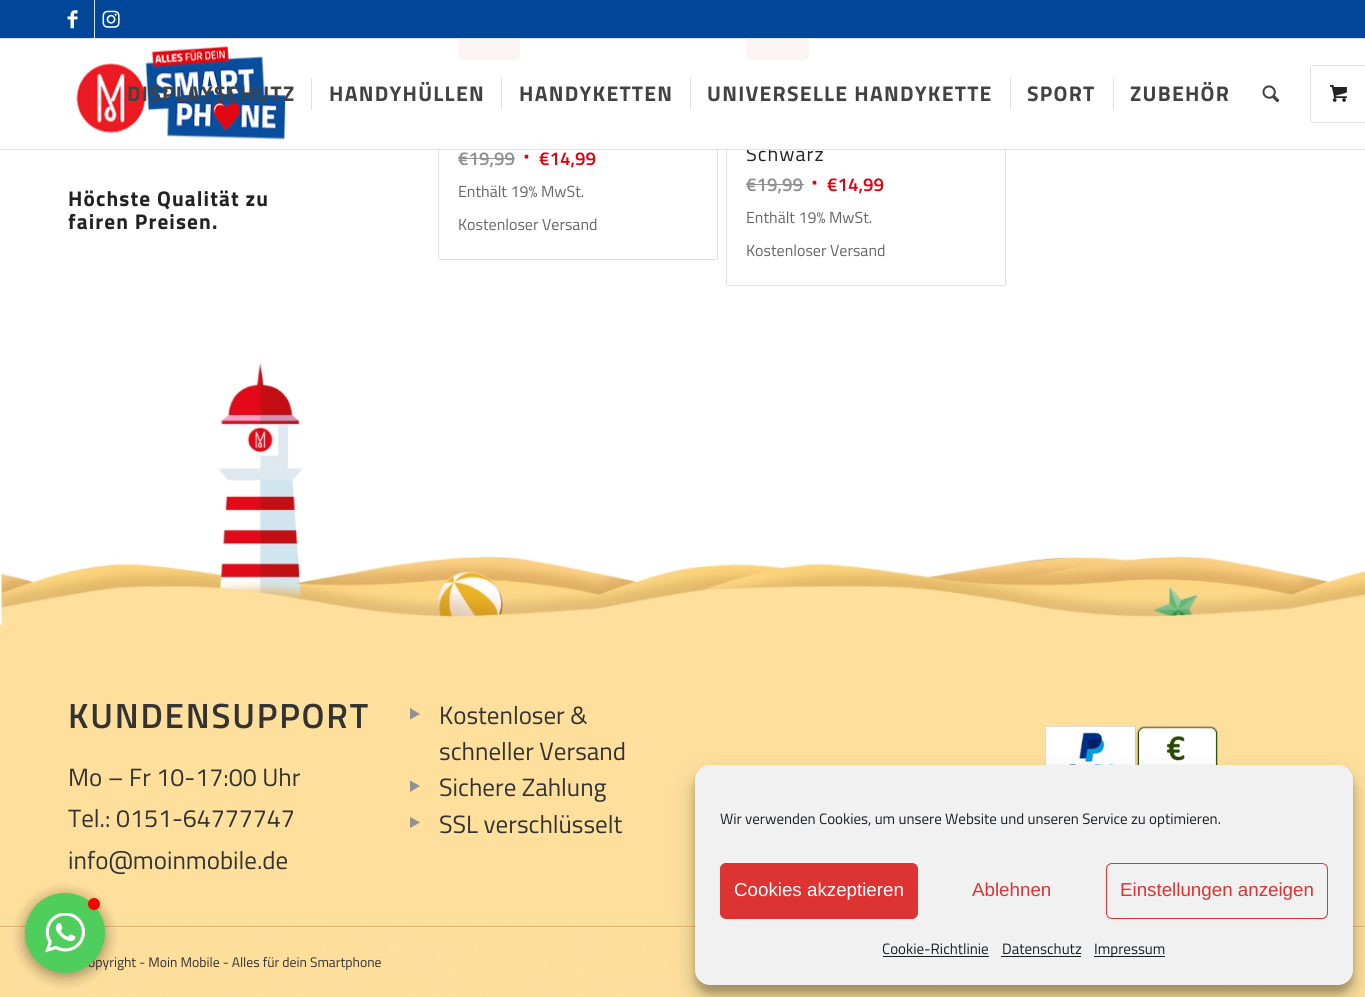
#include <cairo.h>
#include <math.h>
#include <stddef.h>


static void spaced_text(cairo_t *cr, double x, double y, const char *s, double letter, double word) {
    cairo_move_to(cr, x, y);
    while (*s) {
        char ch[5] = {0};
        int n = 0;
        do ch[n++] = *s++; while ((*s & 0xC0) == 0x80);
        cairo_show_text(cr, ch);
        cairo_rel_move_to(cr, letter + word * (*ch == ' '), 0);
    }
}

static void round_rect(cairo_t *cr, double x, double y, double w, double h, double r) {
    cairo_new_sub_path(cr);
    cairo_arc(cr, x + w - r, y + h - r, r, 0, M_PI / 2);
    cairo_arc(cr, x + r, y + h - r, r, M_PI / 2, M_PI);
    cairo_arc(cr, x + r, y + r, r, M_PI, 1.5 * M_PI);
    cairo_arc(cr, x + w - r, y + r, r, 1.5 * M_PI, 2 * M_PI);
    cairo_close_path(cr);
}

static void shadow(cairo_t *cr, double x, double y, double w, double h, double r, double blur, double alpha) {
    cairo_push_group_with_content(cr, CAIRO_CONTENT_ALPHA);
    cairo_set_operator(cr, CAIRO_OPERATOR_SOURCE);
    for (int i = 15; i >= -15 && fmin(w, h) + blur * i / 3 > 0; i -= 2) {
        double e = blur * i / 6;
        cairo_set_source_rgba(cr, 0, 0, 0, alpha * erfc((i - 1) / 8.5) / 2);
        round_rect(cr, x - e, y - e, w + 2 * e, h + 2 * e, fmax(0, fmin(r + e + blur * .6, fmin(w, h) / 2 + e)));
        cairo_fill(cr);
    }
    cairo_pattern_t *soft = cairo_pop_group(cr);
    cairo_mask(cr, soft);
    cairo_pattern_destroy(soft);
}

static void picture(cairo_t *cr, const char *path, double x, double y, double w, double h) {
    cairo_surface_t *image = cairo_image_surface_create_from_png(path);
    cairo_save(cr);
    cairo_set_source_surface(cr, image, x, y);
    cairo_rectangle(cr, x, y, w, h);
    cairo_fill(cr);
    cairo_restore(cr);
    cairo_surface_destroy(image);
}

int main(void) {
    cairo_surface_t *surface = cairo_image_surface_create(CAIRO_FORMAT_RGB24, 1365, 997);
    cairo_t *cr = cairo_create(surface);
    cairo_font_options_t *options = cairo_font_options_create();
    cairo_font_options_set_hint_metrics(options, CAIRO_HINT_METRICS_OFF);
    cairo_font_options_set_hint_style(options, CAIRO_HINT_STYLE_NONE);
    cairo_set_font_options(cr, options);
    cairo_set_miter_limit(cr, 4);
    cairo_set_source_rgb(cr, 1, 1, 1);
    cairo_paint(cr);
    round_rect(cr, 438.5, -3.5, 279, 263, 2);
    cairo_set_source_rgb(cr, 0.882, 0.882, 0.882);
    cairo_set_line_width(cr, 1);
    cairo_stroke(cr);
    cairo_set_source_rgb(cr, 1, 1, 1);
    cairo_new_path(cr);
    cairo_move_to(cr, 439, 9);
    cairo_line_to(cr, 716, 9);
    cairo_line_to(cr, 716, 258);
    cairo_curve_to(cr, 716, 258.5, 715.5, 259, 715, 259);
    cairo_line_to(cr, 440, 259);
    cairo_curve_to(cr, 439.5, 259, 439, 258.5, 439, 258);
    cairo_close_path(cr);
    cairo_fill(cr);
    cairo_set_source_rgb(cr, 0.659, 0.063, 0.063);
    round_rect(cr, 458, 21, 62, 39, 5);
    cairo_fill(cr);
    round_rect(cr, 726.5, -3.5, 279, 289, 2);
    cairo_set_source_rgb(cr, 0.882, 0.882, 0.882);
    cairo_stroke(cr);
    cairo_set_source_rgb(cr, 1, 1, 1);
    cairo_new_path(cr);
    cairo_move_to(cr, 728, 9);
    cairo_line_to(cr, 1005, 9);
    cairo_line_to(cr, 1005, 284);
    cairo_curve_to(cr, 1005, 284.5, 1004.5, 285, 1004, 285);
    cairo_line_to(cr, 729, 285);
    cairo_curve_to(cr, 728.5, 285, 728, 284.5, 728, 284);
    cairo_close_path(cr);
    cairo_fill(cr);
    cairo_set_source_rgb(cr, 0.659, 0.063, 0.063);
    round_rect(cr, 746, 21, 63, 39, 5);
    cairo_fill(cr);
    cairo_set_source_rgb(cr, 0, 0.278, 0.6);
    cairo_rectangle(cr, 0, 0, 1365, 38);
    cairo_fill(cr);
    cairo_set_source_rgb(cr, 0.882, 0.882, 0.882);
    cairo_rectangle(cr, 0, 38, 1365, 1);
    cairo_fill(cr);
    cairo_rectangle(cr, 94, 0, 1, 38);
    cairo_fill(cr);
    picture(cr, "img1.png", 67, 10, 11, 19);
    picture(cr, "img2.png", 102, 10, 18, 18);
    cairo_select_font_face(cr, "Titillium Web", CAIRO_FONT_SLANT_NORMAL, CAIRO_FONT_WEIGHT_NORMAL);
    cairo_set_font_size(cr, 20);
    cairo_set_source_rgb(cr, 0.133, 0.133, 0.133);
    spaced_text(cr, 746, 161, "Schwarz", 1, 0);
    cairo_set_source_rgba(cr, 1, 1, 1, 0.95);
    cairo_rectangle(cr, 438, 39, 568, 110);
    cairo_fill(cr);
    cairo_set_source_rgb(cr, 0.882, 0.882, 0.882);
    cairo_rectangle(cr, 0, 149, 1365, 1);
    cairo_fill(cr);
    picture(cr, "img3.png", 76, 46, 210, 94);
    cairo_select_font_face(cr, "Titillium Web", CAIRO_FONT_SLANT_NORMAL, CAIRO_FONT_WEIGHT_BOLD);
    cairo_set_font_size(cr, 21.25);
    cairo_set_source_rgb(cr, 0.259, 0.259, 0.259);
    spaced_text(cr, 127, 101, "DISPLAYSCHUTZ", 1.25, 0);
    spaced_text(cr, 329, 101, "HANDYHÜLLEN", 1.25, 0);
    cairo_set_source_rgb(cr, 0.882, 0.882, 0.882);
    cairo_rectangle(cr, 311, 78, 1, 32);
    cairo_fill(cr);
    cairo_set_source_rgb(cr, 0.259, 0.259, 0.259);
    spaced_text(cr, 519, 101, "HANDYKETTEN", 1.25, 0);
    cairo_set_source_rgb(cr, 0.882, 0.882, 0.882);
    cairo_rectangle(cr, 501, 78, 1, 32);
    cairo_fill(cr);
    cairo_set_source_rgb(cr, 0.259, 0.259, 0.259);
    spaced_text(cr, 707, 101, "UNIVERSELLE HANDYKETTE", 1.25, 0);
    cairo_set_source_rgb(cr, 0.882, 0.882, 0.882);
    cairo_rectangle(cr, 690, 78, 1, 32);
    cairo_fill(cr);
    cairo_set_source_rgb(cr, 0.259, 0.259, 0.259);
    spaced_text(cr, 1027, 101, "SPORT", 1.25, 0);
    cairo_set_source_rgb(cr, 0.882, 0.882, 0.882);
    cairo_rectangle(cr, 1010, 78, 1, 32);
    cairo_fill(cr);
    cairo_set_source_rgb(cr, 0.259, 0.259, 0.259);
    spaced_text(cr, 1130, 101, "ZUBEHÖR", 1.25, 0);
    cairo_set_source_rgb(cr, 0.882, 0.882, 0.882);
    cairo_rectangle(cr, 1113, 78, 1, 32);
    cairo_fill(cr);
    picture(cr, "img4.png", 1262, 85, 18, 18);
    round_rect(cr, 1310.5, 65.5, 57, 57, 2);
    cairo_stroke(cr);
    cairo_set_source_rgb(cr, 1, 1, 1);
    cairo_rectangle(cr, 1311, 66, 1, 1);
    cairo_fill(cr);
    picture(cr, "img5.png", 1330, 85, 17, 17);
    cairo_set_source_rgb(cr, 0.133, 0.133, 0.133);
    spaced_text(cr, 68, 206, "Höchste Qualität zu", 1.1, 0);
    spaced_text(cr, 68, 229, "fairen Preisen.", 1.1, 0);
    cairo_select_font_face(cr, "Titillium Web SemiBold", CAIRO_FONT_SLANT_NORMAL, CAIRO_FONT_WEIGHT_NORMAL);
    cairo_set_font_size(cr, 18.75);
    cairo_set_source_rgb(cr, 0.569, 0.569, 0.569);
    cairo_move_to(cr, 458, 165);
    cairo_show_text(cr, "€19,99");
    cairo_rectangle(cr, 458, 158, 57, 1);
    cairo_fill(cr);
    cairo_select_font_face(cr, "Liberation Sans", CAIRO_FONT_SLANT_NORMAL, CAIRO_FONT_WEIGHT_BOLD);
    cairo_set_font_size(cr, 25);
    cairo_set_source_rgb(cr, 0.89, 0, 0.059);
    cairo_move_to(cr, 523, 165);
    cairo_show_text(cr, "∙");
    cairo_select_font_face(cr, "Titillium Web SemiBold", CAIRO_FONT_SLANT_NORMAL, CAIRO_FONT_WEIGHT_NORMAL);
    cairo_set_font_size(cr, 18.75);
    cairo_move_to(cr, 539, 165);
    cairo_show_text(cr, "€14,99");
    cairo_select_font_face(cr, "Titillium Web", CAIRO_FONT_SLANT_NORMAL, CAIRO_FONT_WEIGHT_NORMAL);
    cairo_set_font_size(cr, 16);
    cairo_set_source_rgb(cr, 0.4, 0.4, 0.4);
    cairo_move_to(cr, 458, 197);
    cairo_show_text(cr, "Enthält 19% MwSt.");
    cairo_move_to(cr, 458, 230);
    cairo_show_text(cr, "Kostenloser Versand");
    cairo_select_font_face(cr, "Titillium Web SemiBold", CAIRO_FONT_SLANT_NORMAL, CAIRO_FONT_WEIGHT_NORMAL);
    cairo_set_font_size(cr, 18.75);
    cairo_set_source_rgb(cr, 0.569, 0.569, 0.569);
    cairo_move_to(cr, 746, 191);
    cairo_show_text(cr, "€19,99");
    cairo_rectangle(cr, 746, 184, 58, 1);
    cairo_fill(cr);
    cairo_select_font_face(cr, "Liberation Sans", CAIRO_FONT_SLANT_NORMAL, CAIRO_FONT_WEIGHT_BOLD);
    cairo_set_font_size(cr, 25);
    cairo_set_source_rgb(cr, 0.89, 0, 0.059);
    cairo_move_to(cr, 811, 191);
    cairo_show_text(cr, "∙");
    cairo_select_font_face(cr, "Titillium Web SemiBold", CAIRO_FONT_SLANT_NORMAL, CAIRO_FONT_WEIGHT_NORMAL);
    cairo_set_font_size(cr, 18.75);
    cairo_move_to(cr, 827, 191);
    cairo_show_text(cr, "€14,99");
    cairo_select_font_face(cr, "Titillium Web", CAIRO_FONT_SLANT_NORMAL, CAIRO_FONT_WEIGHT_NORMAL);
    cairo_set_font_size(cr, 16);
    cairo_set_source_rgb(cr, 0.4, 0.4, 0.4);
    cairo_move_to(cr, 746, 223);
    cairo_show_text(cr, "Enthält 19% MwSt.");
    cairo_move_to(cr, 746, 256);
    cairo_show_text(cr, "Kostenloser Versand");
    picture(cr, "img6.png", 0, 362, 1365, 564);
    cairo_select_font_face(cr, "Titillium Web SemiBold", CAIRO_FONT_SLANT_NORMAL, CAIRO_FONT_WEIGHT_NORMAL);
    cairo_set_font_size(cr, 35);
    cairo_set_source_rgb(cr, 0.2, 0.2, 0.2);
    spaced_text(cr, 68, 728, "KUNDENSUPPORT", 1.75, 0);
    cairo_select_font_face(cr, "Titillium Web", CAIRO_FONT_SLANT_NORMAL, CAIRO_FONT_WEIGHT_NORMAL);
    cairo_set_font_size(cr, 25);
    cairo_move_to(cr, 68, 786);
    cairo_show_text(cr, "Mo – Fr 10-17:00 Uhr");
    cairo_move_to(cr, 68, 827);
    cairo_show_text(cr, "Tel.: 0151-64777747");
    cairo_move_to(cr, 68, 869);
    cairo_show_text(cr, "info@moinmobile.de");
    cairo_set_source_rgb(cr, 0.569, 0.569, 0.569);
    cairo_new_path(cr);
    cairo_move_to(cr, 410, 708);
    cairo_line_to(cr, 420, 714);
    cairo_line_to(cr, 410, 719.5);
    cairo_close_path(cr);
    cairo_fill(cr);
    cairo_set_source_rgb(cr, 0.2, 0.2, 0.2);
    cairo_move_to(cr, 439, 724);
    cairo_show_text(cr, "Kostenloser &");
    cairo_move_to(cr, 439, 760);
    cairo_show_text(cr, "schneller Versand");
    cairo_set_source_rgb(cr, 0.569, 0.569, 0.569);
    cairo_new_path(cr);
    cairo_move_to(cr, 410, 780.5);
    cairo_line_to(cr, 420, 786);
    cairo_line_to(cr, 410, 792);
    cairo_close_path(cr);
    cairo_move_to(cr, 410, 817);
    cairo_line_to(cr, 420, 822.5);
    cairo_line_to(cr, 410, 828);
    cairo_close_path(cr);
    cairo_fill(cr);
    cairo_set_source_rgb(cr, 0.2, 0.2, 0.2);
    cairo_move_to(cr, 439, 796);
    cairo_show_text(cr, "Sichere Zahlung");
    cairo_move_to(cr, 439, 833);
    cairo_show_text(cr, "SSL verschlüsselt");
    picture(cr, "img7.png", 1045, 726, 173, 39);
    picture(cr, "img8.png", 0, 927, 1365, 70);
    cairo_set_source_rgb(cr, 0.894, 0.702, 0.416);
    cairo_rectangle(cr, 0, 926, 1365, 1);
    cairo_fill(cr);
    cairo_set_font_size(cr, 13.75);
    cairo_set_source_rgb(cr, 0.2, 0.2, 0.2);
    cairo_move_to(cr, 88, 967);
    cairo_show_text(cr, "opyright - Moin Mobile - Alles für dein Smartphone");
    cairo_set_source_rgb(cr, 0, 0, 0);
    shadow(cr, 25, 896, 80, 80, 40, 7.5, 0.15);
    shadow(cr, 25, 896, 80, 80, 40, 7.5, 0.15);
    shadow(cr, 25, 896, 80, 80, 40, 7.5, 0.15);
    cairo_set_source_rgb(cr, 0.31, 0.808, 0.365);
    cairo_arc(cr, 65, 933, 40, 0, 2 * M_PI);
    cairo_fill(cr);
    cairo_set_source_rgb(cr, 1, 0, 0);
    cairo_arc(cr, 94, 904, 6, 0, 2 * M_PI);
    cairo_fill(cr);
    picture(cr, "img9.png", 45, 913, 40, 40);
    cairo_set_source_rgb(cr, 0, 0, 0);
    shadow(cr, 695, 773, 658, 220, 15, 4, 0.23);
    shadow(cr, 695, 778, 658, 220, 15, 12.5, 0.19);
    cairo_set_source_rgb(cr, 0.945, 0.945, 0.945);
    round_rect(cr, 695, 765, 658, 220, 15);
    cairo_fill(cr);
    cairo_set_font_size(cr, 15);
    cairo_set_source_rgb(cr, 0.098, 0.118, 0.137);
    cairo_move_to(cr, 720, 824);
    cairo_show_text(cr, "Wir verwenden Cookies, um unsere Website und unseren Service zu optimieren.");
    cairo_set_source_rgb(cr, 0.867, 0.2, 0.2);
    round_rect(cr, 720.5, 863.5, 197, 55, 5.5);
    cairo_fill_preserve(cr);
    cairo_stroke(cr);
    cairo_select_font_face(cr, "Liberation Sans", CAIRO_FONT_SLANT_NORMAL, CAIRO_FONT_WEIGHT_NORMAL);
    cairo_set_font_size(cr, 18.75);
    cairo_set_source_rgb(cr, 1, 1, 1);
    cairo_move_to(cr, 734, 896);
    cairo_show_text(cr, "Cookies akzeptieren");
    cairo_set_source_rgb(cr, 0.867, 0.2, 0.2);
    cairo_move_to(cr, 972, 896);
    cairo_show_text(cr, "Ablehnen");
    round_rect(cr, 1106.5, 863.5, 221, 55, 5.5);
    cairo_stroke(cr);
    cairo_move_to(cr, 1120, 896);
    cairo_show_text(cr, "Einstellungen anzeigen");
    cairo_select_font_face(cr, "Titillium Web", CAIRO_FONT_SLANT_NORMAL, CAIRO_FONT_WEIGHT_NORMAL);
    cairo_set_font_size(cr, 15);
    cairo_set_source_rgb(cr, 0.098, 0.118, 0.137);
    cairo_move_to(cr, 882, 954);
    cairo_show_text(cr, "Cookie-Richtlinie");
    cairo_rectangle(cr, 883, 956, 106, 1);
    cairo_fill(cr);
    cairo_move_to(cr, 1002, 954);
    cairo_show_text(cr, "Datenschutz");
    cairo_rectangle(cr, 1001, 956, 80, 1);
    cairo_fill(cr);
    cairo_rectangle(cr, 1094, 956, 71, 1);
    cairo_fill(cr);
    cairo_move_to(cr, 1094, 954);
    cairo_show_text(cr, "Impressum");
    cairo_surface_write_to_png(surface, "page.png");
    cairo_font_options_destroy(options);
    cairo_destroy(cr);
    cairo_surface_destroy(surface);
    return 0;
}
